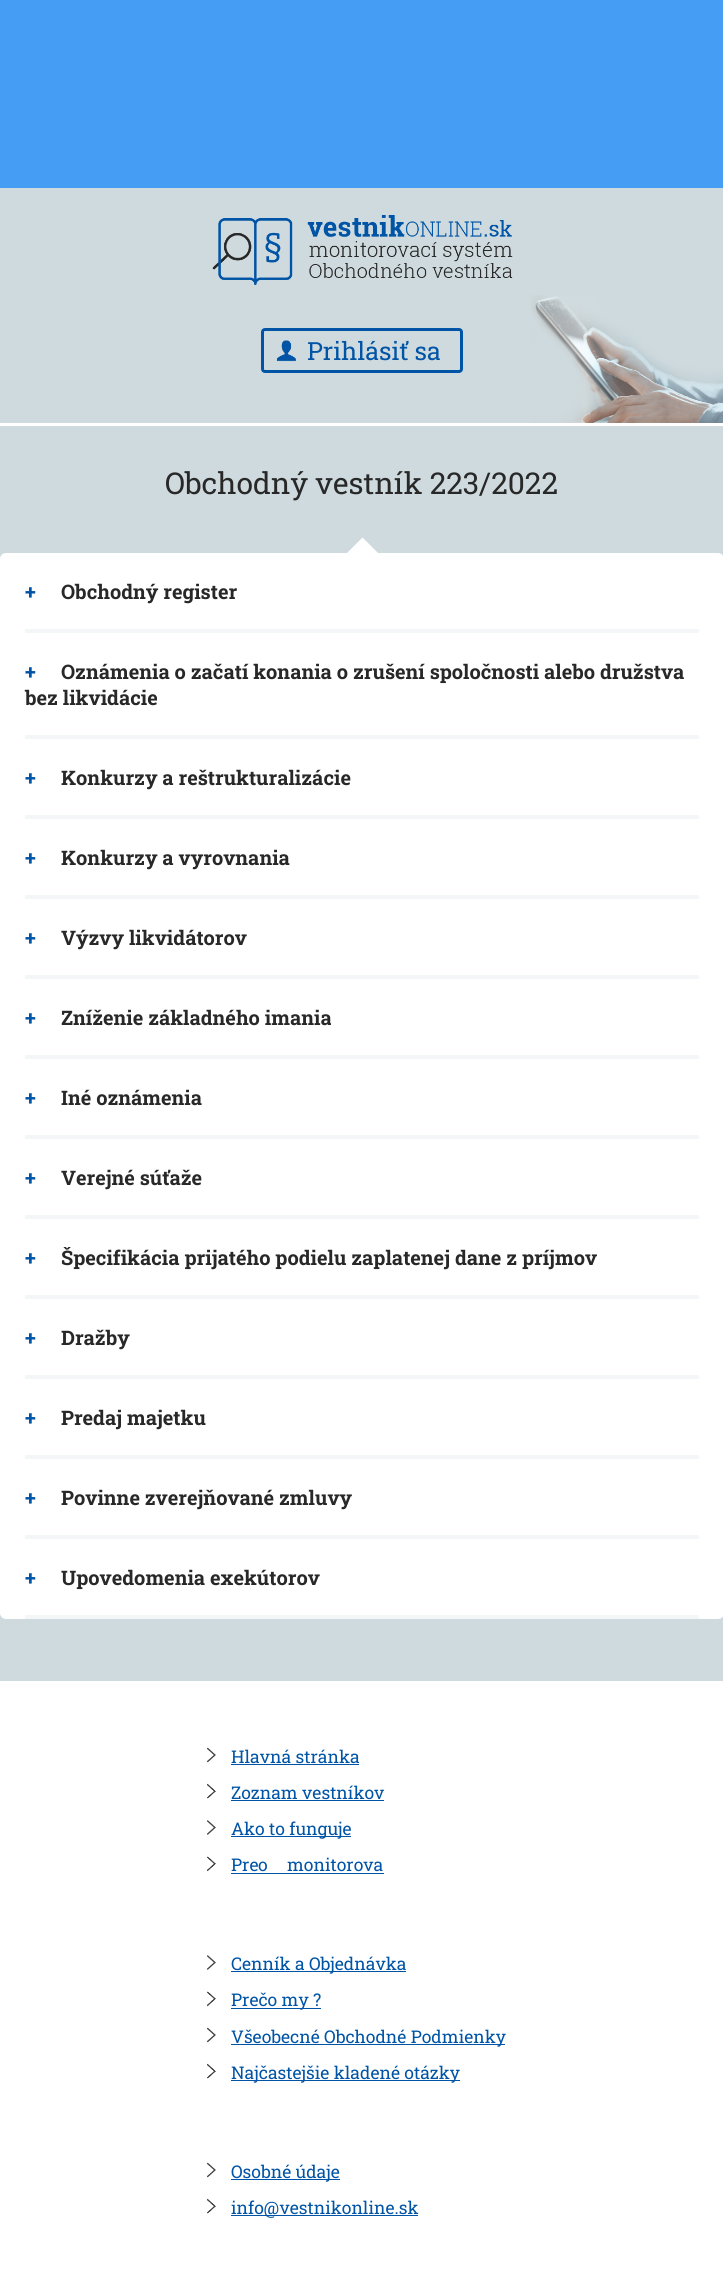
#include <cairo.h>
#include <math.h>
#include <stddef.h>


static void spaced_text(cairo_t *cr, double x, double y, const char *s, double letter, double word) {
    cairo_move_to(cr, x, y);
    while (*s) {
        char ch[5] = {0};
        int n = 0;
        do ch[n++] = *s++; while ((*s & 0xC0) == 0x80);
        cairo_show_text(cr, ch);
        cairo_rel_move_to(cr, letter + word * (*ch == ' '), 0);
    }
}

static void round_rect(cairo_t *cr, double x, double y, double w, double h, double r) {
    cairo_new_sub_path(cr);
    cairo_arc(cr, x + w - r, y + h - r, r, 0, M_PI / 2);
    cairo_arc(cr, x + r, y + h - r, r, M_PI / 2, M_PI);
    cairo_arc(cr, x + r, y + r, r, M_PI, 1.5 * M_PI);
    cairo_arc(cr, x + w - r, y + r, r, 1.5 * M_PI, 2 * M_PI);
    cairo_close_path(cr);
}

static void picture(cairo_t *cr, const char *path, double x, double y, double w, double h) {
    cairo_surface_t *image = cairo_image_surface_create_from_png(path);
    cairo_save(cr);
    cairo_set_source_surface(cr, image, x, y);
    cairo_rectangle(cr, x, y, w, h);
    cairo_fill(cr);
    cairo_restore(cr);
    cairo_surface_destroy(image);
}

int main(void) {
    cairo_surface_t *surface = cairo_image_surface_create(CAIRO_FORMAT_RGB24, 723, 2290);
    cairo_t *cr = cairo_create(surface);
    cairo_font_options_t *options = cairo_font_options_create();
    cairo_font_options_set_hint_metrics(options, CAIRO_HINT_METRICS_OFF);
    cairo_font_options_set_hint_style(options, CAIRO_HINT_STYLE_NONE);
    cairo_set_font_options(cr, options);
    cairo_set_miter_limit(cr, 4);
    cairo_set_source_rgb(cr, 0.812, 0.855, 0.871);
    cairo_paint(cr);
    cairo_set_source_rgb(cr, 0.271, 0.616, 0.957);
    cairo_rectangle(cr, 0, 0, 723, 188);
    cairo_fill(cr);
    picture(cr, "img1.png", 531, 295, 192, 128);
    cairo_set_source_rgb(cr, 1, 1, 1);
    cairo_rectangle(cr, 0, 423, 723, 3);
    cairo_fill(cr);
    picture(cr, "img2.png", 212, 215, 301, 70);
    picture(cr, "img3.png", 276, 340, 21, 22);
    round_rect(cr, 262.5, 329.5, 199, 42, 2.5);
    cairo_set_source_rgb(cr, 0, 0.329, 0.651);
    cairo_set_line_width(cr, 3);
    cairo_stroke(cr);
    cairo_select_font_face(cr, "Roboto Slab", CAIRO_FONT_SLANT_NORMAL, CAIRO_FONT_WEIGHT_NORMAL);
    cairo_set_font_size(cr, 25);
    cairo_move_to(cr, 307, 360);
    cairo_show_text(cr, "Prihlásiť sa");
    cairo_set_font_size(cr, 30);
    cairo_set_source_rgb(cr, 0.157, 0.157, 0.157);
    cairo_move_to(cr, 165, 494);
    cairo_show_text(cr, "Obchodný vestník 223/2022");
    cairo_set_source_rgb(cr, 1, 1, 1);
    round_rect(cr, 0, 553, 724, 1066, 6);
    cairo_fill(cr);
    cairo_new_path(cr);
    cairo_move_to(cr, 381, 556);
    cairo_line_to(cr, 344, 556);
    cairo_line_to(cr, 362.5, 537.5);
    cairo_close_path(cr);
    cairo_fill(cr);
    cairo_set_source_rgb(cr, 0.953, 0.965, 0.965);
    cairo_rectangle(cr, 25, 629, 674, 4);
    cairo_fill(cr);
    cairo_select_font_face(cr, "Roboto Slab", CAIRO_FONT_SLANT_NORMAL, CAIRO_FONT_WEIGHT_BOLD);
    cairo_set_font_size(cr, 20);
    cairo_set_source_rgb(cr, 0, 0.329, 0.651);
    cairo_move_to(cr, 25, 599);
    cairo_show_text(cr, "+");
    cairo_set_source_rgb(cr, 0.157, 0.157, 0.157);
    cairo_move_to(cr, 61, 599);
    cairo_show_text(cr, "Obchodný register");
    cairo_set_source_rgb(cr, 0.953, 0.965, 0.965);
    cairo_rectangle(cr, 25, 735, 674, 4);
    cairo_fill(cr);
    cairo_set_source_rgb(cr, 0, 0.329, 0.651);
    cairo_move_to(cr, 25, 679);
    cairo_show_text(cr, "+");
    cairo_set_source_rgb(cr, 0.157, 0.157, 0.157);
    cairo_move_to(cr, 61, 679);
    cairo_show_text(cr, "Oznámenia o začatí konania o zrušení spoločnosti alebo družstva");
    cairo_move_to(cr, 25, 705);
    cairo_show_text(cr, "bez likvidácie");
    cairo_set_source_rgb(cr, 0.953, 0.965, 0.965);
    cairo_rectangle(cr, 25, 815, 674, 4);
    cairo_fill(cr);
    cairo_set_source_rgb(cr, 0, 0.329, 0.651);
    cairo_move_to(cr, 25, 785);
    cairo_show_text(cr, "+");
    cairo_set_source_rgb(cr, 0.157, 0.157, 0.157);
    cairo_move_to(cr, 61, 785);
    cairo_show_text(cr, "Konkurzy a reštrukturalizácie");
    cairo_set_source_rgb(cr, 0.953, 0.965, 0.965);
    cairo_rectangle(cr, 25, 895, 674, 4);
    cairo_fill(cr);
    cairo_set_source_rgb(cr, 0, 0.329, 0.651);
    cairo_move_to(cr, 25, 865);
    cairo_show_text(cr, "+");
    cairo_set_source_rgb(cr, 0.157, 0.157, 0.157);
    cairo_move_to(cr, 61, 865);
    cairo_show_text(cr, "Konkurzy a vyrovnania");
    cairo_set_source_rgb(cr, 0.953, 0.965, 0.965);
    cairo_rectangle(cr, 25, 975, 674, 4);
    cairo_fill(cr);
    cairo_set_source_rgb(cr, 0, 0.329, 0.651);
    cairo_move_to(cr, 25, 945);
    cairo_show_text(cr, "+");
    cairo_set_source_rgb(cr, 0.157, 0.157, 0.157);
    cairo_move_to(cr, 61, 945);
    cairo_show_text(cr, "Výzvy likvidátorov");
    cairo_set_source_rgb(cr, 0.953, 0.965, 0.965);
    cairo_rectangle(cr, 25, 1055, 674, 4);
    cairo_fill(cr);
    cairo_set_source_rgb(cr, 0, 0.329, 0.651);
    cairo_move_to(cr, 25, 1025);
    cairo_show_text(cr, "+");
    cairo_set_source_rgb(cr, 0.157, 0.157, 0.157);
    cairo_move_to(cr, 61, 1025);
    cairo_show_text(cr, "Zníženie základného imania");
    cairo_set_source_rgb(cr, 0.953, 0.965, 0.965);
    cairo_rectangle(cr, 25, 1135, 674, 4);
    cairo_fill(cr);
    cairo_set_source_rgb(cr, 0, 0.329, 0.651);
    cairo_move_to(cr, 25, 1105);
    cairo_show_text(cr, "+");
    cairo_set_source_rgb(cr, 0.157, 0.157, 0.157);
    cairo_move_to(cr, 61, 1105);
    cairo_show_text(cr, "Iné oznámenia");
    cairo_set_source_rgb(cr, 0.953, 0.965, 0.965);
    cairo_rectangle(cr, 25, 1215, 674, 4);
    cairo_fill(cr);
    cairo_set_source_rgb(cr, 0, 0.329, 0.651);
    cairo_move_to(cr, 25, 1185);
    cairo_show_text(cr, "+");
    cairo_set_source_rgb(cr, 0.157, 0.157, 0.157);
    cairo_move_to(cr, 61, 1185);
    cairo_show_text(cr, "Verejné súťaže");
    cairo_set_source_rgb(cr, 0.953, 0.965, 0.965);
    cairo_rectangle(cr, 25, 1295, 674, 4);
    cairo_fill(cr);
    cairo_set_source_rgb(cr, 0, 0.329, 0.651);
    cairo_move_to(cr, 25, 1265);
    cairo_show_text(cr, "+");
    cairo_set_source_rgb(cr, 0.157, 0.157, 0.157);
    cairo_move_to(cr, 61, 1265);
    cairo_show_text(cr, "Špecifikácia prijatého podielu zaplatenej dane z príjmov");
    cairo_set_source_rgb(cr, 0.953, 0.965, 0.965);
    cairo_rectangle(cr, 25, 1375, 674, 4);
    cairo_fill(cr);
    cairo_set_source_rgb(cr, 0, 0.329, 0.651);
    cairo_move_to(cr, 25, 1345);
    cairo_show_text(cr, "+");
    cairo_set_source_rgb(cr, 0.157, 0.157, 0.157);
    cairo_move_to(cr, 61, 1345);
    cairo_show_text(cr, "Dražby");
    cairo_set_source_rgb(cr, 0.953, 0.965, 0.965);
    cairo_rectangle(cr, 25, 1455, 674, 4);
    cairo_fill(cr);
    cairo_set_source_rgb(cr, 0, 0.329, 0.651);
    cairo_move_to(cr, 25, 1425);
    cairo_show_text(cr, "+");
    cairo_set_source_rgb(cr, 0.157, 0.157, 0.157);
    cairo_move_to(cr, 61, 1425);
    cairo_show_text(cr, "Predaj majetku");
    cairo_set_source_rgb(cr, 0.953, 0.965, 0.965);
    cairo_rectangle(cr, 25, 1535, 674, 4);
    cairo_fill(cr);
    cairo_set_source_rgb(cr, 0, 0.329, 0.651);
    cairo_move_to(cr, 25, 1505);
    cairo_show_text(cr, "+");
    cairo_set_source_rgb(cr, 0.157, 0.157, 0.157);
    cairo_move_to(cr, 61, 1505);
    cairo_show_text(cr, "Povinne zverejňované zmluvy");
    cairo_set_source_rgb(cr, 0.953, 0.965, 0.965);
    cairo_rectangle(cr, 25, 1615, 674, 4);
    cairo_fill(cr);
    cairo_set_source_rgb(cr, 0, 0.329, 0.651);
    cairo_move_to(cr, 25, 1585);
    cairo_show_text(cr, "+");
    cairo_set_source_rgb(cr, 0.157, 0.157, 0.157);
    cairo_move_to(cr, 61, 1585);
    cairo_show_text(cr, "Upovedomenia exekútorov");
    cairo_set_source_rgb(cr, 1, 1, 1);
    cairo_rectangle(cr, 0, 1681, 723, 609);
    cairo_fill(cr);
    picture(cr, "img4.png", 207, 1747, 9, 16);
    cairo_select_font_face(cr, "Roboto Slab", CAIRO_FONT_SLANT_NORMAL, CAIRO_FONT_WEIGHT_NORMAL);
    cairo_set_font_size(cr, 17.5);
    cairo_set_source_rgb(cr, 0, 0.329, 0.651);
    cairo_move_to(cr, 231, 1763);
    cairo_show_text(cr, "Hlavná stránka");
    cairo_rectangle(cr, 231, 1764, 128, 1);
    cairo_fill(cr);
    picture(cr, "img5.png", 207, 1783, 9, 16);
    cairo_move_to(cr, 231, 1799);
    cairo_show_text(cr, "Zoznam vestníkov");
    cairo_rectangle(cr, 231, 1800, 153, 1);
    cairo_fill(cr);
    picture(cr, "img6.png", 207, 1820, 9, 15);
    cairo_rectangle(cr, 231, 1836, 120, 1);
    cairo_fill(cr);
    cairo_move_to(cr, 231, 1835);
    cairo_show_text(cr, "Ako to funguje");
    picture(cr, "img7.png", 207, 1856, 9, 16);
    cairo_move_to(cr, 231, 1871);
    cairo_show_text(cr, "Pre");
    cairo_rectangle(cr, 231, 1873, 153, 1);
    cairo_fill(cr);
    spaced_text(cr, 258, 1871, "o monitorova", 0, 15);
    picture(cr, "img6.png", 207, 1955, 9, 15);
    cairo_rectangle(cr, 231, 1971, 175, 1);
    cairo_fill(cr);
    cairo_move_to(cr, 231, 1970);
    cairo_show_text(cr, "Cenník a Objednávka");
    picture(cr, "img7.png", 207, 1991, 9, 16);
    cairo_rectangle(cr, 231, 2008, 90, 1);
    cairo_fill(cr);
    cairo_move_to(cr, 231, 2006);
    cairo_show_text(cr, "Prečo my ?");
    picture(cr, "img4.png", 207, 2027, 9, 16);
    cairo_rectangle(cr, 231, 2044, 274, 1);
    cairo_fill(cr);
    cairo_move_to(cr, 231, 2043);
    cairo_show_text(cr, "Všeobecné Obchodné Podmienky");
    picture(cr, "img5.png", 207, 2063, 9, 16);
    cairo_rectangle(cr, 231, 2080, 229, 1);
    cairo_fill(cr);
    cairo_move_to(cr, 231, 2079);
    cairo_show_text(cr, "Najčastejšie kladené otázky");
    picture(cr, "img4.png", 207, 2162, 9, 16);
    cairo_rectangle(cr, 231, 2179, 109, 1);
    cairo_fill(cr);
    cairo_move_to(cr, 231, 2178);
    cairo_show_text(cr, "Osobné údaje");
    picture(cr, "img5.png", 207, 2198, 9, 16);
    cairo_rectangle(cr, 231, 2215, 187, 1);
    cairo_fill(cr);
    cairo_move_to(cr, 231, 2214);
    cairo_show_text(cr, "info@vestnikonline.sk");
    cairo_surface_write_to_png(surface, "page.png");
    cairo_font_options_destroy(options);
    cairo_destroy(cr);
    cairo_surface_destroy(surface);
    return 0;
}
